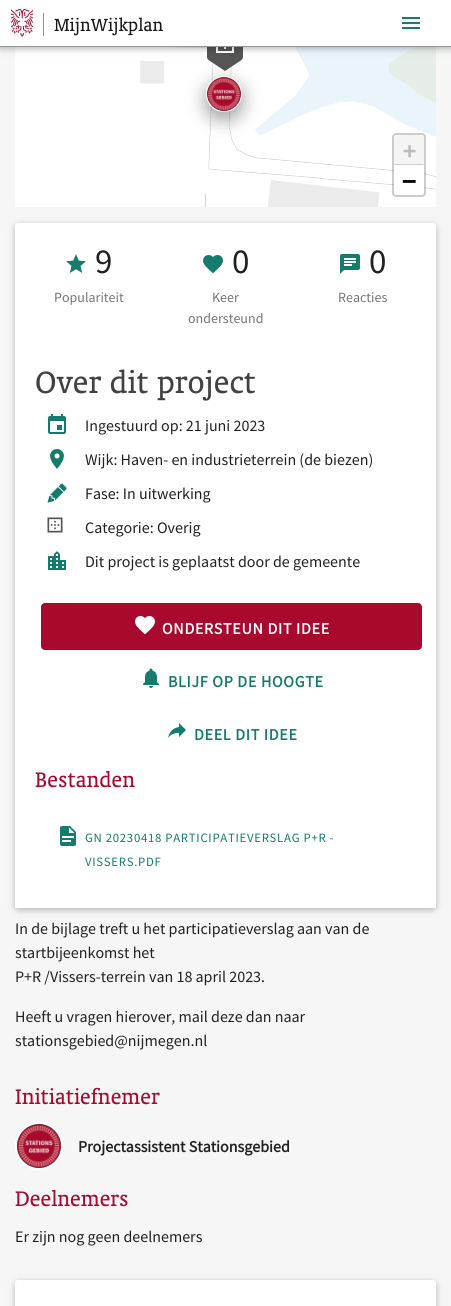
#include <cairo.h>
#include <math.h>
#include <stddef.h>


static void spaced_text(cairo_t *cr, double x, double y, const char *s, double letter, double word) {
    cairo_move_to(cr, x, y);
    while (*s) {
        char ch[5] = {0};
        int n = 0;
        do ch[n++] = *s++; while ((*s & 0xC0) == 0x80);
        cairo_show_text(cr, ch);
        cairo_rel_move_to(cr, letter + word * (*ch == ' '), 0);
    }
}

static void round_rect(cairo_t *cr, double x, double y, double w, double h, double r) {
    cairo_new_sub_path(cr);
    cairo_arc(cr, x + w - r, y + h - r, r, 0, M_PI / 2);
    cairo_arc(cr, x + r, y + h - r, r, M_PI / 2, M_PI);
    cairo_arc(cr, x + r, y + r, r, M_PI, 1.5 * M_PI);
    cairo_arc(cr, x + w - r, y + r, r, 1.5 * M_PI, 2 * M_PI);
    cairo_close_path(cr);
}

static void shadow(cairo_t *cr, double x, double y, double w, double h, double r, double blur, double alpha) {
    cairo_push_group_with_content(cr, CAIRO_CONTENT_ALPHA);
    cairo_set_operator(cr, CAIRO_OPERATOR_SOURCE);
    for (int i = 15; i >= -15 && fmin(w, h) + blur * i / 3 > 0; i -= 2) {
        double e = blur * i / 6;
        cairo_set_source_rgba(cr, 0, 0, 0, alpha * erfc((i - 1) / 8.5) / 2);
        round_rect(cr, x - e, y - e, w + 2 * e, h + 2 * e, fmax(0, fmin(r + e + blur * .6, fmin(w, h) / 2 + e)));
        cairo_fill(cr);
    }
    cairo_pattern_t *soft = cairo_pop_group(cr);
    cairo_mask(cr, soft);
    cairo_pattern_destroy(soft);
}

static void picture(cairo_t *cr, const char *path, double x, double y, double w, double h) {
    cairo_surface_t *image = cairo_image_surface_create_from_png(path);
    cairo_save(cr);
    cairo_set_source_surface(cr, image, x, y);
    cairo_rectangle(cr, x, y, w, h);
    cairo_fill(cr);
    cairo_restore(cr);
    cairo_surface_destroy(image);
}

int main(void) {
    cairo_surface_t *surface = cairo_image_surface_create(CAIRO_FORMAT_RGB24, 451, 1306);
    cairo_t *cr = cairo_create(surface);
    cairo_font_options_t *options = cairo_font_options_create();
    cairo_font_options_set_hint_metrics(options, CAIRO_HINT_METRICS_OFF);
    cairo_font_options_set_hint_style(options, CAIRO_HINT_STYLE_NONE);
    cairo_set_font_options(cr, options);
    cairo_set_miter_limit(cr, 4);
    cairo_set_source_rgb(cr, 0.961, 0.961, 0.961);
    cairo_paint(cr);
    cairo_set_source_rgb(cr, 1, 1, 1);
    cairo_rectangle(cr, 15, 47, 8, 160);
    cairo_fill(cr);
    picture(cr, "img3.png", 23, 47, 256, 73);
    picture(cr, "img4.png", 279, 47, 157, 73);
    picture(cr, "img5.png", 23, 120, 256, 87);
    cairo_set_source_rgb(cr, 0, 0, 0);
    shadow(cr, 206, 82, 36, 36, 18, 10, 0.19);
    shadow(cr, 206, 84, 36, 36, 18, 8.5, 0.2);
    picture(cr, "img7.png", 207, 47, 36, 24);
    shadow(cr, 0, 2, 451, 47, 0, 5, 0.12);
    shadow(cr, 0, 2, 451, 47, 0, 2.5, 0.16);
    cairo_set_source_rgb(cr, 1, 1, 1);
    cairo_rectangle(cr, 0, 0, 451, 46);
    cairo_fill(cr);
    cairo_set_source_rgb(cr, 0.58, 0.58, 0.58);
    cairo_rectangle(cr, 0, 46, 451, 1);
    cairo_fill(cr);
    picture(cr, "img1.png", 11, 9, 22, 28);
    cairo_select_font_face(cr, "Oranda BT", CAIRO_FONT_SLANT_NORMAL, CAIRO_FONT_WEIGHT_NORMAL);
    cairo_set_font_size(cr, 20);
    cairo_set_source_rgb(cr, 0.102, 0.102, 0.102);
    cairo_move_to(cr, 54, 31);
    cairo_show_text(cr, "MijnWijkplan");
    cairo_set_source_rgb(cr, 0.58, 0.58, 0.58);
    cairo_rectangle(cr, 43, 13, 1, 23);
    cairo_fill(cr);
    picture(cr, "img2.png", 402, 17, 18, 12);
    picture(cr, "img6.png", 279, 120, 157, 87);
    cairo_arc(cr, 224, 94, 17.5, 0, 2 * M_PI);
    cairo_set_source_rgb(cr, 1, 1, 1);
    cairo_set_line_width(cr, 1);
    cairo_stroke(cr);
    picture(cr, "img8.png", 207, 77, 34, 34);
    round_rect(cr, 393, 134, 32, 62, 3);
    cairo_set_source_rgba(cr, 0, 0, 0, 0.2);
    cairo_set_line_width(cr, 2);
    cairo_stroke(cr);
    cairo_set_source_rgb(cr, 0.957, 0.957, 0.957);
    cairo_new_path(cr);
    cairo_move_to(cr, 398, 135);
    cairo_line_to(cr, 420, 135);
    cairo_curve_to(cr, 422, 135, 424, 137, 424, 139);
    cairo_line_to(cr, 424, 165);
    cairo_line_to(cr, 394, 165);
    cairo_line_to(cr, 394, 139);
    cairo_curve_to(cr, 394, 137, 396, 135, 398, 135);
    cairo_close_path(cr);
    cairo_fill(cr);
    cairo_set_source_rgb(cr, 0.8, 0.8, 0.8);
    cairo_new_path(cr);
    cairo_move_to(cr, 424, 165);
    cairo_line_to(cr, 423, 164);
    cairo_line_to(cr, 395, 164);
    cairo_line_to(cr, 394, 165);
    cairo_close_path(cr);
    cairo_fill(cr);
    cairo_select_font_face(cr, "DejaVu Sans Mono", CAIRO_FONT_SLANT_NORMAL, CAIRO_FONT_WEIGHT_BOLD);
    cairo_set_font_size(cr, 22);
    cairo_set_source_rgb(cr, 0.733, 0.733, 0.733);
    cairo_move_to(cr, 403, 158);
    cairo_show_text(cr, "+");
    cairo_set_source_rgb(cr, 1, 1, 1);
    cairo_new_path(cr);
    cairo_move_to(cr, 394, 165);
    cairo_line_to(cr, 424, 165);
    cairo_line_to(cr, 424, 191);
    cairo_curve_to(cr, 424, 193, 422, 195, 420, 195);
    cairo_line_to(cr, 398, 195);
    cairo_curve_to(cr, 396, 195, 394, 193, 394, 191);
    cairo_close_path(cr);
    cairo_fill(cr);
    cairo_set_font_size(cr, 24);
    cairo_set_source_rgb(cr, 0, 0, 0);
    cairo_move_to(cr, 402, 189);
    cairo_show_text(cr, "−");
    cairo_set_source_rgb(cr, 0, 0, 0);
    shadow(cr, 15, 225, 421, 685, 4, 5, 0.12);
    shadow(cr, 15, 225, 421, 685, 4, 2.5, 0.16);
    cairo_set_source_rgb(cr, 1, 1, 1);
    cairo_new_path(cr);
    cairo_move_to(cr, 18, 223);
    cairo_line_to(cr, 433, 223);
    cairo_curve_to(cr, 434.5, 223, 436, 224.5, 436, 226);
    cairo_line_to(cr, 436, 341);
    cairo_line_to(cr, 15, 341);
    cairo_line_to(cr, 15, 226);
    cairo_curve_to(cr, 15, 224.5, 16.5, 223, 18, 223);
    cairo_close_path(cr);
    cairo_fill(cr);
    picture(cr, "img9.png", 66, 254, 20, 19);
    cairo_select_font_face(cr, "Source Sans Pro", CAIRO_FONT_SLANT_NORMAL, CAIRO_FONT_WEIGHT_NORMAL);
    cairo_set_font_size(cr, 35);
    cairo_set_source_rgb(cr, 0.129, 0.129, 0.129);
    cairo_move_to(cr, 95, 273);
    cairo_show_text(cr, "9");
    cairo_set_font_size(cr, 14);
    cairo_set_source_rgb(cr, 0.463, 0.463, 0.463);
    cairo_move_to(cr, 54, 302);
    cairo_show_text(cr, "Populariteit");
    picture(cr, "img10.png", 203, 255, 20, 19);
    cairo_set_font_size(cr, 35);
    cairo_set_source_rgb(cr, 0.129, 0.129, 0.129);
    cairo_move_to(cr, 232, 273);
    cairo_show_text(cr, "0");
    cairo_set_font_size(cr, 14);
    cairo_set_source_rgb(cr, 0.463, 0.463, 0.463);
    cairo_move_to(cr, 212, 302);
    cairo_show_text(cr, "Keer");
    cairo_move_to(cr, 188, 323);
    cairo_show_text(cr, "ondersteund");
    picture(cr, "img11.png", 340, 254, 20, 20);
    cairo_set_font_size(cr, 35);
    cairo_set_source_rgb(cr, 0.129, 0.129, 0.129);
    cairo_move_to(cr, 369, 273);
    cairo_show_text(cr, "0");
    cairo_set_font_size(cr, 14);
    cairo_set_source_rgb(cr, 0.463, 0.463, 0.463);
    cairo_move_to(cr, 338, 302);
    cairo_show_text(cr, "Reacties");
    cairo_set_source_rgb(cr, 1, 1, 1);
    cairo_rectangle(cr, 15, 341, 421, 567);
    cairo_fill(cr);
    cairo_select_font_face(cr, "Oranda BT", CAIRO_FONT_SLANT_NORMAL, CAIRO_FONT_WEIGHT_NORMAL);
    cairo_set_font_size(cr, 35);
    cairo_set_source_rgb(cr, 0.259, 0.259, 0.259);
    cairo_move_to(cr, 35, 393);
    cairo_show_text(cr, "Over dit project");
    picture(cr, "img12.png", 48, 414, 18, 20);
    cairo_select_font_face(cr, "Source Sans Pro", CAIRO_FONT_SLANT_NORMAL, CAIRO_FONT_WEIGHT_NORMAL);
    cairo_set_font_size(cr, 16);
    cairo_set_source_rgb(cr, 0.129, 0.129, 0.129);
    cairo_move_to(cr, 85, 431);
    cairo_show_text(cr, "Ingestuurd op: 21 juni 2023");
    picture(cr, "img13.png", 50, 449, 14, 20);
    cairo_move_to(cr, 85, 465);
    cairo_show_text(cr, "Wijk: Haven- en industrieterrein (de biezen)");
    picture(cr, "img14.png", 47, 483, 20, 20);
    cairo_move_to(cr, 85, 499);
    cairo_show_text(cr, "Fase: In uitwerking");
    picture(cr, "img15.png", 47, 517, 16, 16);
    cairo_move_to(cr, 85, 533);
    cairo_show_text(cr, "Categorie: Overig");
    picture(cr, "img16.png", 48, 551, 18, 19);
    cairo_move_to(cr, 85, 567);
    cairo_show_text(cr, "Dit project is geplaatst door de gemeente");
    cairo_set_source_rgb(cr, 0.659, 0.039, 0.176);
    round_rect(cr, 41, 603, 381, 47, 4);
    cairo_fill(cr);
    picture(cr, "img17.png", 135, 616, 20, 19);
    cairo_select_font_face(cr, "Source Sans Pro", CAIRO_FONT_SLANT_NORMAL, CAIRO_FONT_WEIGHT_BOLD);
    cairo_set_source_rgb(cr, 1, 1, 1);
    spaced_text(cr, 162, 634, "ONDERSTEUN DIT IDEE", 0.7, 0);
    picture(cr, "img18.png", 143, 668, 16, 20);
    cairo_set_source_rgb(cr, 0.082, 0.486, 0.427);
    spaced_text(cr, 168, 687, "BLIJF OP DE HOOGTE", 0.7, 0);
    picture(cr, "img19.png", 168, 723, 18, 15);
    spaced_text(cr, 194, 740, "DEEL DIT IDEE", 0.7, 0);
    cairo_select_font_face(cr, "Oranda BT", CAIRO_FONT_SLANT_NORMAL, CAIRO_FONT_WEIGHT_NORMAL);
    cairo_set_font_size(cr, 24);
    cairo_set_source_rgb(cr, 0.659, 0.039, 0.176);
    cairo_move_to(cr, 35, 787);
    cairo_show_text(cr, "Bestanden");
    picture(cr, "img20.png", 60, 826, 16, 20);
    cairo_select_font_face(cr, "Source Sans Pro", CAIRO_FONT_SLANT_NORMAL, CAIRO_FONT_WEIGHT_NORMAL);
    cairo_set_font_size(cr, 12.75);
    cairo_set_source_rgb(cr, 0.082, 0.486, 0.427);
    spaced_text(cr, 85, 842, "GN 20230418 PARTICIPATIEVERSLAG P+R -", 0.7, 0);
    spaced_text(cr, 85, 866, "VISSERS.PDF", 0.7, 0);
    cairo_set_font_size(cr, 16);
    cairo_set_source_rgb(cr, 0.129, 0.129, 0.129);
    cairo_move_to(cr, 15, 934);
    cairo_show_text(cr, "In de bijlage treft u het participatieverslag aan van de");
    cairo_move_to(cr, 15, 958);
    cairo_show_text(cr, "startbijeenkomst het");
    cairo_move_to(cr, 15, 982);
    cairo_show_text(cr, "P+R /Vissers-terrein van 18 april 2023.");
    cairo_move_to(cr, 15, 1022);
    cairo_show_text(cr, "Heeft u vragen hierover, mail deze dan naar");
    cairo_move_to(cr, 15, 1046);
    cairo_show_text(cr, "stationsgebied@nijmegen.nl");
    cairo_select_font_face(cr, "Oranda BT", CAIRO_FONT_SLANT_NORMAL, CAIRO_FONT_WEIGHT_NORMAL);
    cairo_set_font_size(cr, 24);
    cairo_set_source_rgb(cr, 0.659, 0.039, 0.176);
    cairo_move_to(cr, 15, 1104);
    cairo_show_text(cr, "Initiatiefnemer");
    cairo_set_source_rgb(cr, 0.102, 0.6, 0.541);
    cairo_new_path(cr);
    cairo_arc(cr, 39, 1146, 23, 0, 2 * M_PI);
    cairo_fill_preserve(cr);
    cairo_set_source_rgb(cr, 1, 1, 1);
    cairo_stroke(cr);
    picture(cr, "img21.png", 17, 1124, 44, 44);
    cairo_select_font_face(cr, "Source Sans Pro", CAIRO_FONT_SLANT_NORMAL, CAIRO_FONT_WEIGHT_BOLD);
    cairo_set_font_size(cr, 16);
    cairo_set_source_rgb(cr, 0.129, 0.129, 0.129);
    cairo_move_to(cr, 78, 1152);
    cairo_show_text(cr, "Projectassistent Stationsgebied");
    cairo_select_font_face(cr, "Oranda BT", CAIRO_FONT_SLANT_NORMAL, CAIRO_FONT_WEIGHT_NORMAL);
    cairo_set_font_size(cr, 24);
    cairo_set_source_rgb(cr, 0.659, 0.039, 0.176);
    cairo_move_to(cr, 15, 1206);
    cairo_show_text(cr, "Deelnemers");
    cairo_select_font_face(cr, "Source Sans Pro", CAIRO_FONT_SLANT_NORMAL, CAIRO_FONT_WEIGHT_NORMAL);
    cairo_set_font_size(cr, 16);
    cairo_set_source_rgb(cr, 0.129, 0.129, 0.129);
    cairo_move_to(cr, 15, 1242);
    cairo_show_text(cr, "Er zijn nog geen deelnemers");
    cairo_set_source_rgb(cr, 0, 0, 0);
    shadow(cr, 15, 1282, 421, 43, 4, 5, 0.12);
    shadow(cr, 15, 1282, 421, 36, 4, 2.5, 0.16);
    cairo_set_source_rgb(cr, 1, 1, 1);
    cairo_new_path(cr);
    cairo_move_to(cr, 18, 1280);
    cairo_line_to(cr, 433, 1280);
    cairo_curve_to(cr, 434.5, 1280, 436, 1281.5, 436, 1283);
    cairo_line_to(cr, 436, 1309);
    cairo_line_to(cr, 15, 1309);
    cairo_line_to(cr, 15, 1283);
    cairo_curve_to(cr, 15, 1281.5, 16.5, 1280, 18, 1280);
    cairo_close_path(cr);
    cairo_fill(cr);
    cairo_surface_write_to_png(surface, "page.png");
    cairo_font_options_destroy(options);
    cairo_destroy(cr);
    cairo_surface_destroy(surface);
    return 0;
}
